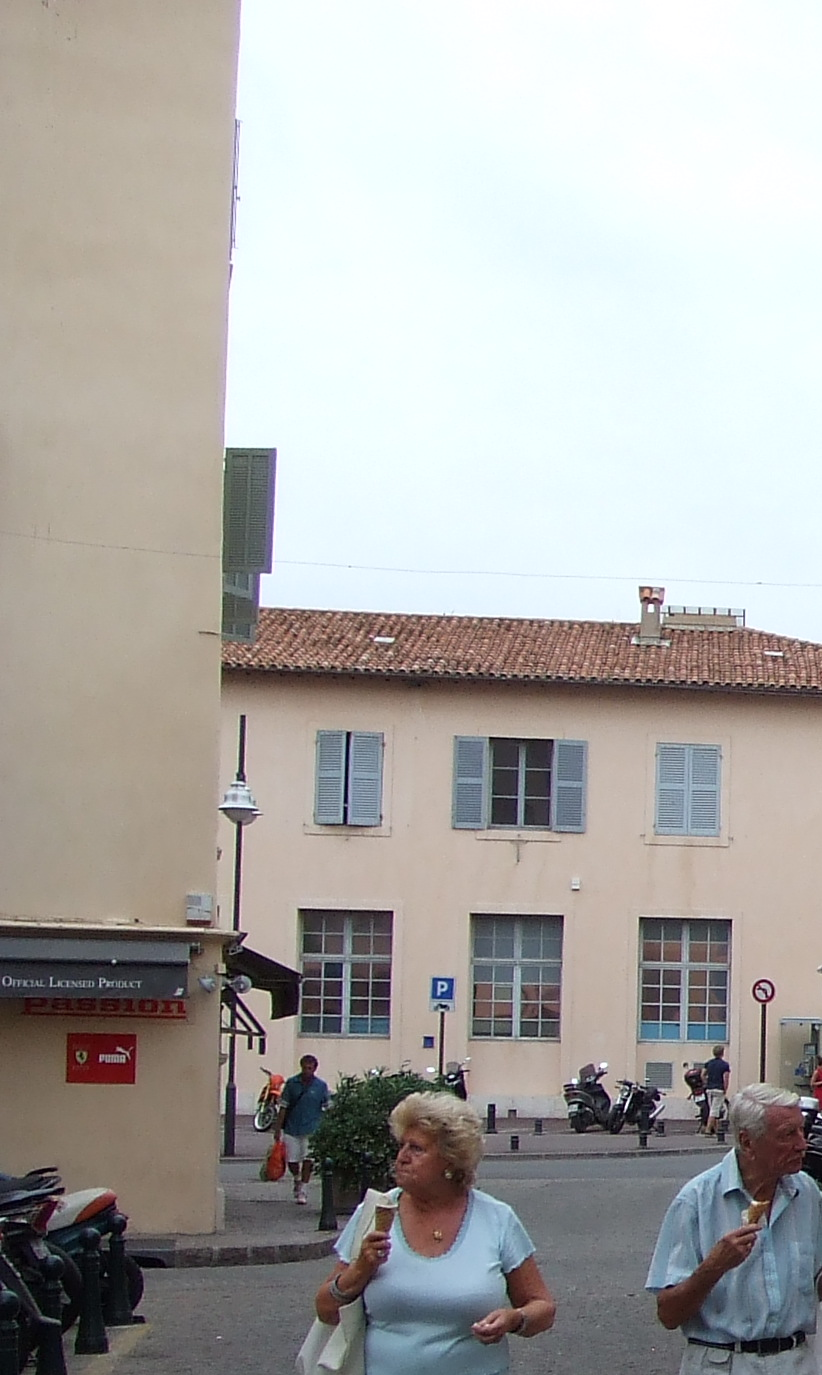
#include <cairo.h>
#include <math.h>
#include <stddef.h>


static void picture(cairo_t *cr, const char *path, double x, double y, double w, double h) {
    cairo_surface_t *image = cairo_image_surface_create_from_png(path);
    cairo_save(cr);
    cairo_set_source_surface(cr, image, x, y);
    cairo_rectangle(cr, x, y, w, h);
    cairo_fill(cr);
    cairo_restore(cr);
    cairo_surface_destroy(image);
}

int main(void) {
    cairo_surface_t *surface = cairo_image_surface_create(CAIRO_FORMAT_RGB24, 822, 1375);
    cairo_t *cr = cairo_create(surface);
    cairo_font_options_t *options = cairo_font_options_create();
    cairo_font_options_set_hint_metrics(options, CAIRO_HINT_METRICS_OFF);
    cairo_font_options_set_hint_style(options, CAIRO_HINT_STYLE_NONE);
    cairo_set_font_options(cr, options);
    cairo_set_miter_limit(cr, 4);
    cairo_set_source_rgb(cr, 1, 1, 1);
    cairo_paint(cr);
    picture(cr, "img1.png", 0, 0, 822, 1375);
    cairo_surface_write_to_png(surface, "page.png");
    cairo_font_options_destroy(options);
    cairo_destroy(cr);
    cairo_surface_destroy(surface);
    return 0;
}
